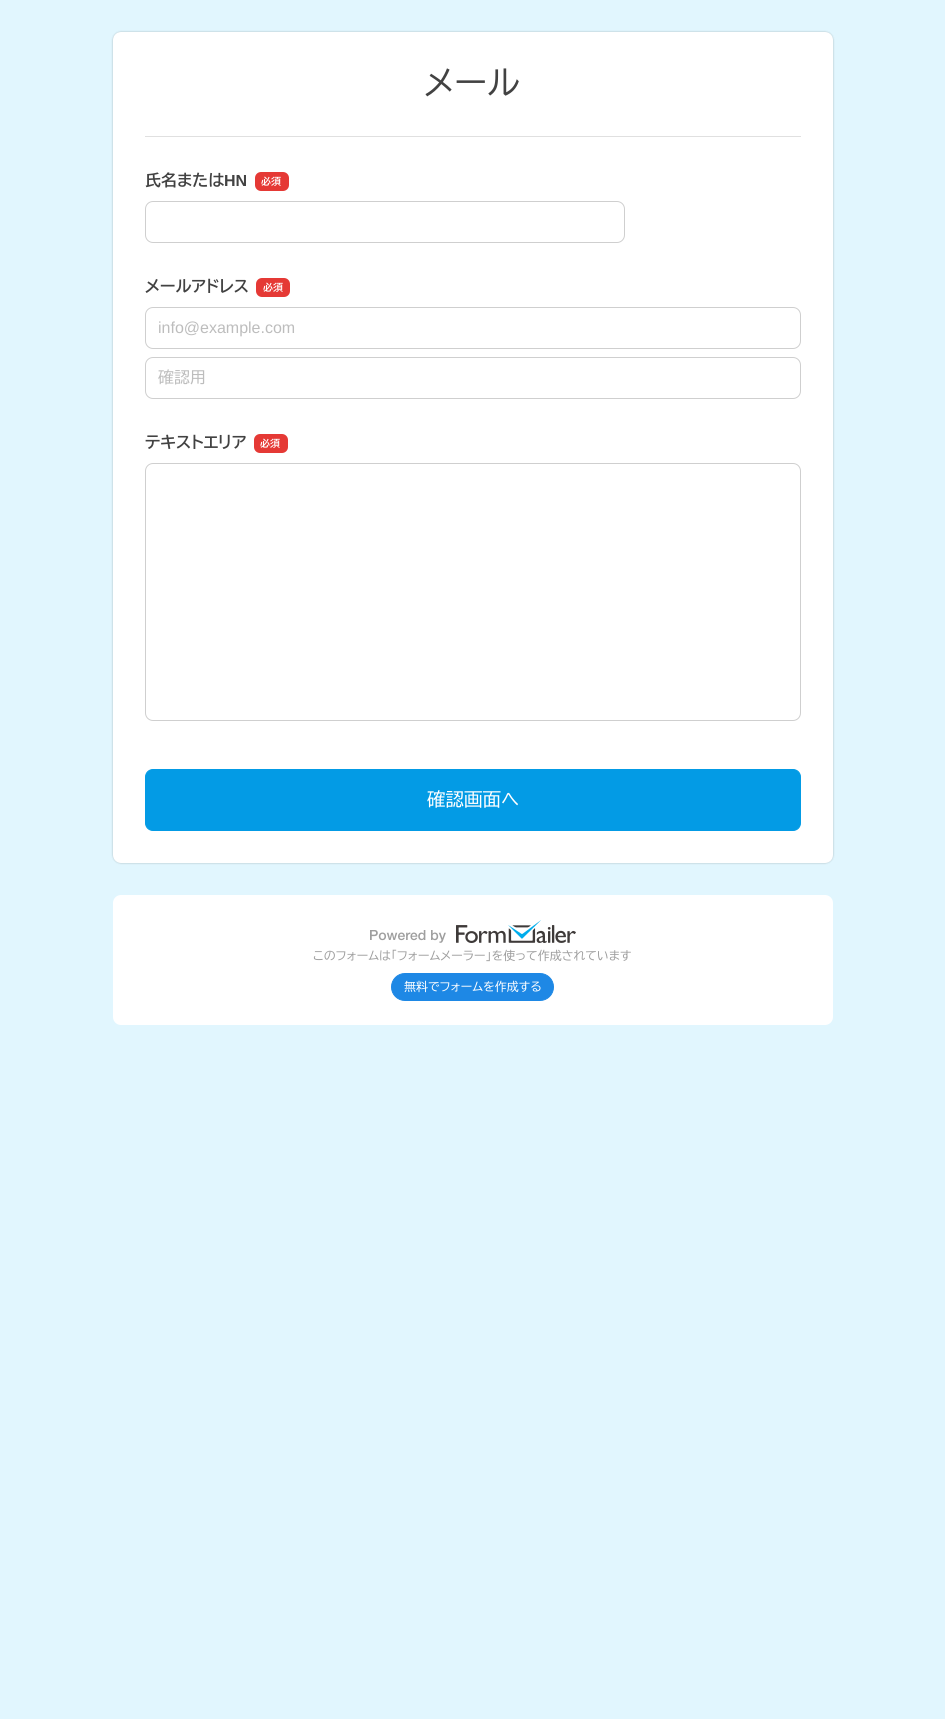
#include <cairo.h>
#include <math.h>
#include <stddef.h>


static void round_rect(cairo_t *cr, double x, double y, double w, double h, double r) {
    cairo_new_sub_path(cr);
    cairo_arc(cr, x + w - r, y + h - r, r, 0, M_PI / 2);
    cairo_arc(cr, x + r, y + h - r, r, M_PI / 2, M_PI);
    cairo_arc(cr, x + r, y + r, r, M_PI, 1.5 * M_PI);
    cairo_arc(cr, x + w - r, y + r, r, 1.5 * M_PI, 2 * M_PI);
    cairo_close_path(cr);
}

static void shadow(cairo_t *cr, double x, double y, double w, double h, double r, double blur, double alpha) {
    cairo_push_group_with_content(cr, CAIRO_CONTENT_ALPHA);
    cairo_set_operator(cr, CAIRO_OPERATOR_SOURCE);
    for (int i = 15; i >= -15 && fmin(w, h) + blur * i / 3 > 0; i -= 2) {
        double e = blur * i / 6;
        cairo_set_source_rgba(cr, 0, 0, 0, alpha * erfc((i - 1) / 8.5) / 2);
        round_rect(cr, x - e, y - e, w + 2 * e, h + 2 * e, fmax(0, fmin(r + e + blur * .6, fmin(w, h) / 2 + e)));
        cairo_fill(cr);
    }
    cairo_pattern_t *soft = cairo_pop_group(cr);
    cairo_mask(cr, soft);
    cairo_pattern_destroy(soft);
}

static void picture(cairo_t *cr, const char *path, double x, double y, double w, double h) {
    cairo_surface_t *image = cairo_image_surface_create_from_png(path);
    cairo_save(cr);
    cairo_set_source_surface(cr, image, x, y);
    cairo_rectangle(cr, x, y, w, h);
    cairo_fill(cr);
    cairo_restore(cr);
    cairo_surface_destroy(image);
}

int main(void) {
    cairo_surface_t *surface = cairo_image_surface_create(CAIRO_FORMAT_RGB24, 945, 1719);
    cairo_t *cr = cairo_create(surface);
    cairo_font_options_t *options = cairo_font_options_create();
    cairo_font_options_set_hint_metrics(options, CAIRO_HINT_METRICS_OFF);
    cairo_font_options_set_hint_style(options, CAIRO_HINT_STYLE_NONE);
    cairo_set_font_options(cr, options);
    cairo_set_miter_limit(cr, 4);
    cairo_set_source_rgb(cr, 0.882, 0.961, 0.996);
    cairo_paint(cr);
    cairo_set_source_rgb(cr, 0, 0, 0);
    shadow(cr, 113, 32, 720, 831, 8, 1, 0.25);
    cairo_set_source_rgb(cr, 1, 1, 1);
    round_rect(cr, 113, 32, 720, 831, 8);
    cairo_fill(cr);
    cairo_select_font_face(cr, "BIZ UDPGothic", CAIRO_FONT_SLANT_NORMAL, CAIRO_FONT_WEIGHT_NORMAL);
    cairo_set_font_size(cr, 33.5);
    cairo_set_source_rgb(cr, 0.259, 0.259, 0.259);
    cairo_move_to(cr, 424, 95);
    cairo_show_text(cr, "メール");
    cairo_set_source_rgb(cr, 0.878, 0.878, 0.878);
    cairo_rectangle(cr, 145, 136, 656, 1);
    cairo_fill(cr);
    cairo_select_font_face(cr, "BIZ UDPGothic", CAIRO_FONT_SLANT_NORMAL, CAIRO_FONT_WEIGHT_BOLD);
    cairo_set_font_size(cr, 16);
    cairo_set_source_rgb(cr, 0.259, 0.259, 0.259);
    cairo_move_to(cr, 145, 186);
    cairo_show_text(cr, "氏名または");
    cairo_select_font_face(cr, "Liberation Sans", CAIRO_FONT_SLANT_NORMAL, CAIRO_FONT_WEIGHT_BOLD);
    cairo_move_to(cr, 224, 186);
    cairo_show_text(cr, "HN");
    cairo_set_source_rgb(cr, 0.898, 0.224, 0.208);
    round_rect(cr, 255, 172, 34, 19, 6);
    cairo_fill(cr);
    cairo_select_font_face(cr, "BIZ UDPGothic", CAIRO_FONT_SLANT_NORMAL, CAIRO_FONT_WEIGHT_BOLD);
    cairo_set_font_size(cr, 10);
    cairo_set_source_rgb(cr, 1, 1, 1);
    cairo_move_to(cr, 261, 185);
    cairo_show_text(cr, "必須");
    round_rect(cr, 145.5, 201.5, 479, 41, 7.5);
    cairo_set_source_rgb(cr, 0.812, 0.812, 0.812);
    cairo_set_line_width(cr, 1);
    cairo_stroke(cr);
    cairo_set_font_size(cr, 16);
    cairo_set_source_rgb(cr, 0.259, 0.259, 0.259);
    cairo_move_to(cr, 145, 292);
    cairo_show_text(cr, "メールアドレス");
    cairo_set_source_rgb(cr, 0.898, 0.224, 0.208);
    round_rect(cr, 256, 278, 34, 19, 6);
    cairo_fill(cr);
    cairo_set_font_size(cr, 10);
    cairo_set_source_rgb(cr, 1, 1, 1);
    cairo_move_to(cr, 263, 291);
    cairo_show_text(cr, "必須");
    round_rect(cr, 145.5, 307.5, 655, 41, 7.5);
    cairo_set_source_rgb(cr, 0.812, 0.812, 0.812);
    cairo_stroke(cr);
    cairo_select_font_face(cr, "Liberation Sans", CAIRO_FONT_SLANT_NORMAL, CAIRO_FONT_WEIGHT_NORMAL);
    cairo_set_font_size(cr, 16);
    cairo_set_source_rgb(cr, 0.741, 0.741, 0.741);
    cairo_move_to(cr, 158, 333);
    cairo_show_text(cr, "info@example.com");
    round_rect(cr, 145.5, 357.5, 655, 41, 7.5);
    cairo_set_source_rgb(cr, 0.812, 0.812, 0.812);
    cairo_stroke(cr);
    cairo_select_font_face(cr, "BIZ UDPGothic", CAIRO_FONT_SLANT_NORMAL, CAIRO_FONT_WEIGHT_NORMAL);
    cairo_set_source_rgb(cr, 0.741, 0.741, 0.741);
    cairo_move_to(cr, 158, 383);
    cairo_show_text(cr, "確認用");
    cairo_select_font_face(cr, "BIZ UDPGothic", CAIRO_FONT_SLANT_NORMAL, CAIRO_FONT_WEIGHT_BOLD);
    cairo_set_source_rgb(cr, 0.259, 0.259, 0.259);
    cairo_move_to(cr, 145, 448);
    cairo_show_text(cr, "テキストエリア");
    cairo_set_source_rgb(cr, 0.898, 0.224, 0.208);
    round_rect(cr, 254, 434, 34, 19, 6);
    cairo_fill(cr);
    cairo_set_font_size(cr, 10);
    cairo_set_source_rgb(cr, 1, 1, 1);
    cairo_move_to(cr, 260, 447);
    cairo_show_text(cr, "必須");
    round_rect(cr, 145.5, 463.5, 655, 257, 7.5);
    cairo_set_source_rgb(cr, 0.812, 0.812, 0.812);
    cairo_stroke(cr);
    cairo_set_source_rgb(cr, 0.012, 0.608, 0.898);
    round_rect(cr, 145.5, 769.5, 655, 61, 7.5);
    cairo_fill_preserve(cr);
    cairo_stroke(cr);
    cairo_select_font_face(cr, "BIZ UDPGothic", CAIRO_FONT_SLANT_NORMAL, CAIRO_FONT_WEIGHT_NORMAL);
    cairo_set_font_size(cr, 18.5);
    cairo_set_source_rgb(cr, 1, 1, 1);
    cairo_move_to(cr, 427, 806);
    cairo_show_text(cr, "確認画面へ");
    round_rect(cr, 113, 895, 720, 130, 8);
    cairo_fill(cr);
    picture(cr, "img1.png", 370, 920, 206, 23);
    cairo_set_font_size(cr, 12);
    cairo_set_source_rgb(cr, 0.62, 0.62, 0.62);
    cairo_move_to(cr, 313, 960);
    cairo_show_text(cr, "このフォームは「フォームメーラー」を使って作成されています");
    cairo_set_source_rgb(cr, 0.118, 0.533, 0.898);
    round_rect(cr, 391.5, 973.5, 162, 27, 13.5);
    cairo_fill_preserve(cr);
    cairo_stroke(cr);
    cairo_set_source_rgb(cr, 1, 1, 1);
    cairo_move_to(cr, 404, 991);
    cairo_show_text(cr, "無料でフォームを作成する");
    cairo_surface_write_to_png(surface, "page.png");
    cairo_font_options_destroy(options);
    cairo_destroy(cr);
    cairo_surface_destroy(surface);
    return 0;
}
